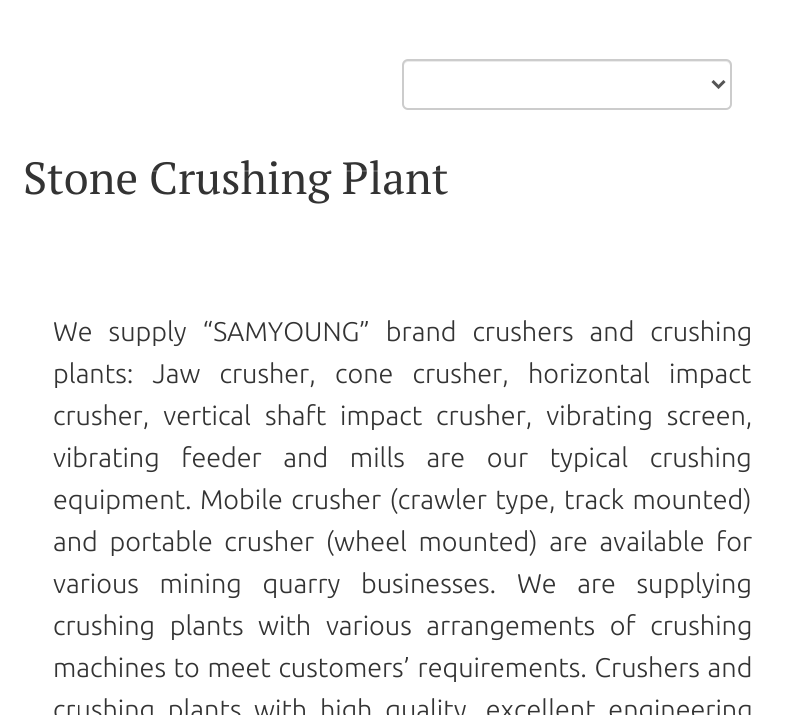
#include <cairo.h>
#include <math.h>
#include <stddef.h>


static void spaced_text(cairo_t *cr, double x, double y, const char *s, double letter, double word) {
    cairo_move_to(cr, x, y);
    while (*s) {
        char ch[5] = {0};
        int n = 0;
        do ch[n++] = *s++; while ((*s & 0xC0) == 0x80);
        cairo_show_text(cr, ch);
        cairo_rel_move_to(cr, letter + word * (*ch == ' '), 0);
    }
}

static void round_rect(cairo_t *cr, double x, double y, double w, double h, double r) {
    cairo_new_sub_path(cr);
    cairo_arc(cr, x + w - r, y + h - r, r, 0, M_PI / 2);
    cairo_arc(cr, x + r, y + h - r, r, M_PI / 2, M_PI);
    cairo_arc(cr, x + r, y + r, r, M_PI, 1.5 * M_PI);
    cairo_arc(cr, x + w - r, y + r, r, 1.5 * M_PI, 2 * M_PI);
    cairo_close_path(cr);
}

int main(void) {
    cairo_surface_t *surface = cairo_image_surface_create(CAIRO_FORMAT_RGB24, 804, 715);
    cairo_t *cr = cairo_create(surface);
    cairo_font_options_t *options = cairo_font_options_create();
    cairo_font_options_set_hint_metrics(options, CAIRO_HINT_METRICS_OFF);
    cairo_font_options_set_hint_style(options, CAIRO_HINT_STYLE_NONE);
    cairo_set_font_options(cr, options);
    cairo_set_miter_limit(cr, 4);
    cairo_set_source_rgb(cr, 1, 1, 1);
    cairo_paint(cr);
    cairo_select_font_face(cr, "PT Serif", CAIRO_FONT_SLANT_NORMAL, CAIRO_FONT_WEIGHT_NORMAL);
    cairo_set_font_size(cr, 45);
    cairo_set_source_rgb(cr, 0.2, 0.2, 0.2);
    cairo_move_to(cr, 23, 194);
    cairo_show_text(cr, "Stone Crushing Plant");
    cairo_set_source_rgba(cr, 1, 1, 1, 0.2);
    cairo_rectangle(cr, 72, 170, 375, 2);
    cairo_fill(cr);
    cairo_set_source_rgb(cr, 0.925, 0.925, 0.925);
    cairo_new_path(cr);
    cairo_move_to(cr, 408, 62);
    cairo_line_to(cr, 726, 62);
    cairo_curve_to(cr, 728, 62, 730, 64, 730, 66);
    cairo_line_to(cr, 730, 106);
    cairo_curve_to(cr, 731, 105, 731, 104, 731, 103);
    cairo_line_to(cr, 731, 65);
    cairo_curve_to(cr, 731, 62, 729, 60, 726, 60);
    cairo_line_to(cr, 409, 60);
    cairo_curve_to(cr, 406, 60, 404, 62, 404, 65);
    cairo_line_to(cr, 404, 66);
    cairo_curve_to(cr, 404, 64, 406, 62, 408, 62);
    cairo_close_path(cr);
    cairo_fill(cr);
    round_rect(cr, 403, 60, 328, 49, 5);
    cairo_set_source_rgb(cr, 0.8, 0.8, 0.8);
    cairo_stroke(cr);
    cairo_new_path(cr);
    cairo_move_to(cr, 712.5, 81);
    cairo_line_to(cr, 718.5, 87);
    cairo_line_to(cr, 724.5, 81);
    cairo_set_source_rgb(cr, 0.333, 0.333, 0.333);
    cairo_set_line_width(cr, 3);
    cairo_stroke(cr);
    cairo_select_font_face(cr, "Ubuntu Light", CAIRO_FONT_SLANT_NORMAL, CAIRO_FONT_WEIGHT_NORMAL);
    cairo_set_font_size(cr, 27);
    cairo_set_source_rgb(cr, 0.2, 0.2, 0.2);
    spaced_text(cr, 53, 341, "We supply “SAMYOUNG” brand crushers and crushing", 0, 9.75);
    spaced_text(cr, 53, 383, "plants: Jaw crusher, cone crusher, horizontal impact", 0, 13);
    spaced_text(cr, 53, 425, "crusher, vertical shaft impact crusher, vibrating screen,", 0, 7.75);
    spaced_text(cr, 53, 467, "vibrating feeder and mills are our typical crushing", 0, 15.5);
    spaced_text(cr, 53, 509, "equipment. Mobile crusher (crawler type, track mounted)", 0, 2.25);
    spaced_text(cr, 53, 551, "and portable crusher (wheel mounted) are available for", 0, 5.5);
    spaced_text(cr, 53, 593, "various mining quarry businesses. We are supplying", 0, 14.5);
    spaced_text(cr, 53, 635, "crushing plants with various arrangements of crushing", 0, 8.5);
    spaced_text(cr, 53, 677, "machines to meet customers’ requirements. Crushers and", 0, 1.5);
    spaced_text(cr, 53, 719, "crushing plants with high quality, excellent engineering", 0, 6.5);
    cairo_surface_write_to_png(surface, "page.png");
    cairo_font_options_destroy(options);
    cairo_destroy(cr);
    cairo_surface_destroy(surface);
    return 0;
}
